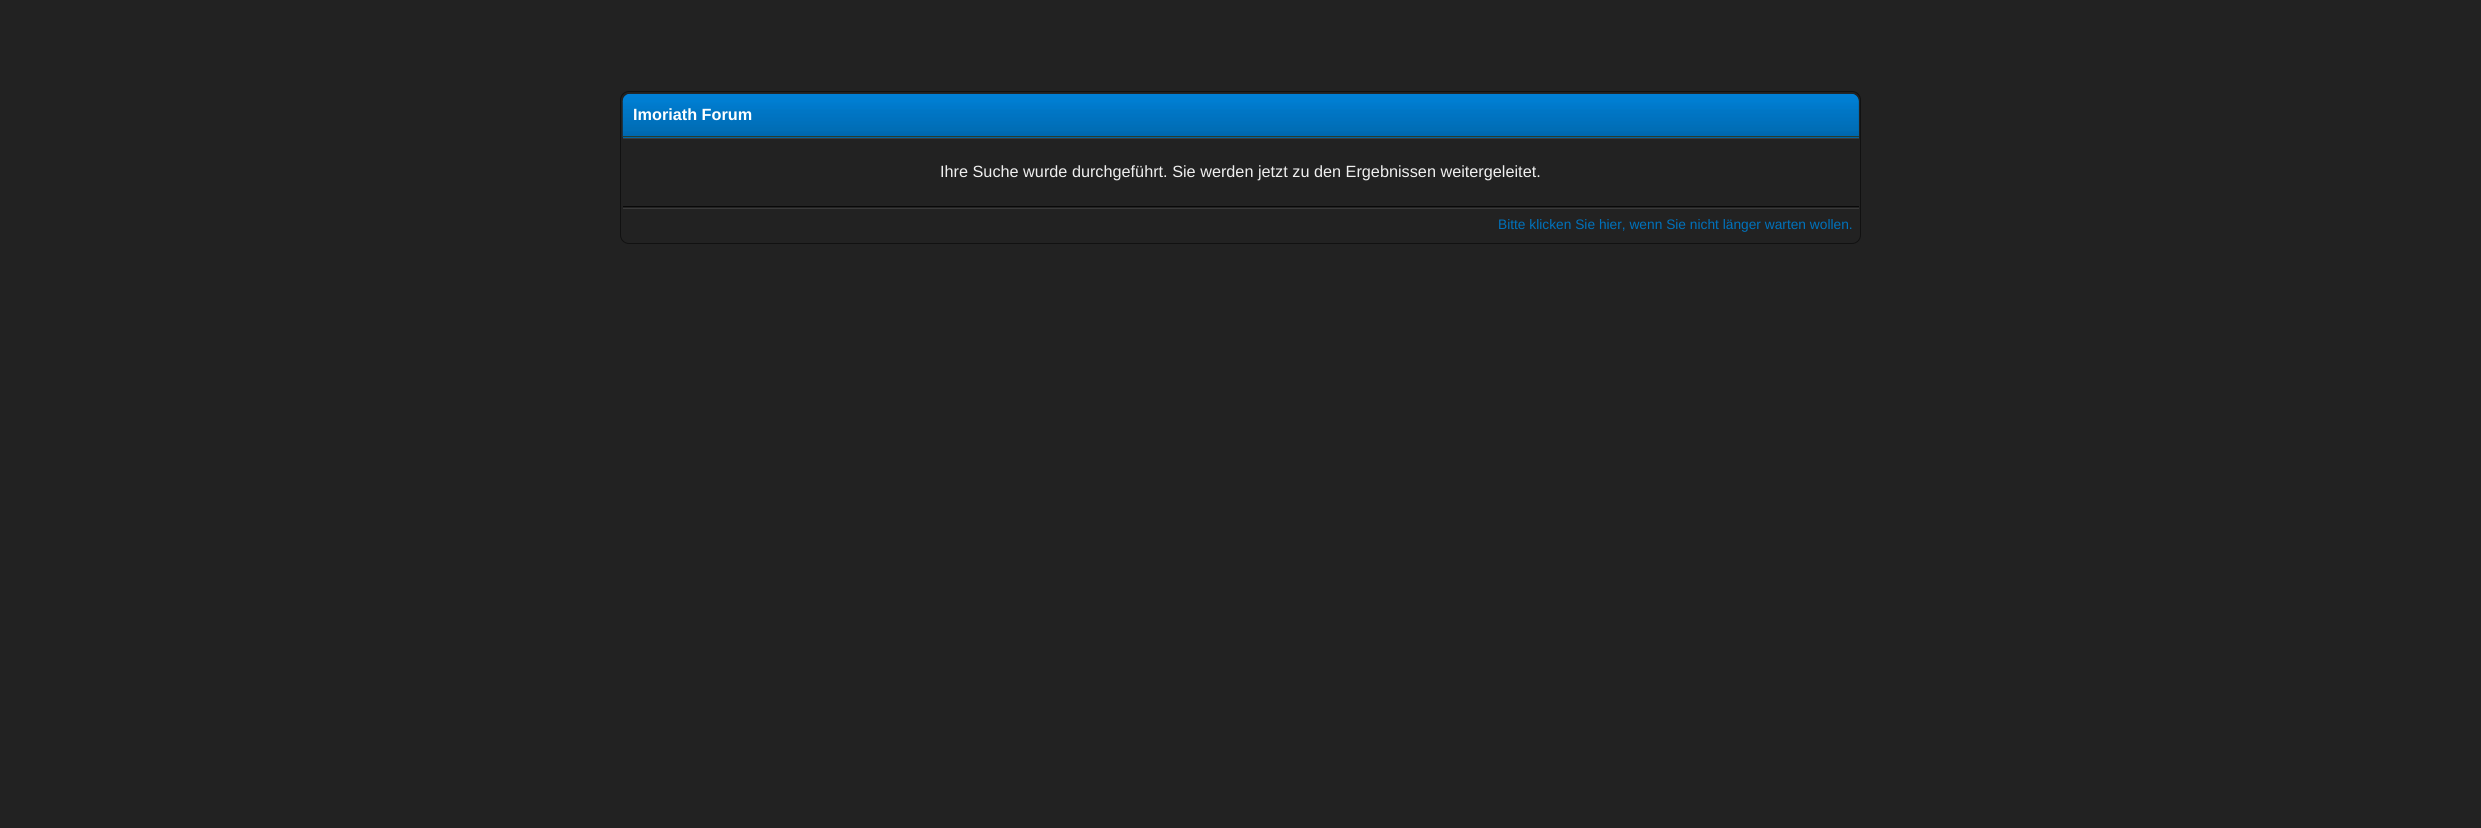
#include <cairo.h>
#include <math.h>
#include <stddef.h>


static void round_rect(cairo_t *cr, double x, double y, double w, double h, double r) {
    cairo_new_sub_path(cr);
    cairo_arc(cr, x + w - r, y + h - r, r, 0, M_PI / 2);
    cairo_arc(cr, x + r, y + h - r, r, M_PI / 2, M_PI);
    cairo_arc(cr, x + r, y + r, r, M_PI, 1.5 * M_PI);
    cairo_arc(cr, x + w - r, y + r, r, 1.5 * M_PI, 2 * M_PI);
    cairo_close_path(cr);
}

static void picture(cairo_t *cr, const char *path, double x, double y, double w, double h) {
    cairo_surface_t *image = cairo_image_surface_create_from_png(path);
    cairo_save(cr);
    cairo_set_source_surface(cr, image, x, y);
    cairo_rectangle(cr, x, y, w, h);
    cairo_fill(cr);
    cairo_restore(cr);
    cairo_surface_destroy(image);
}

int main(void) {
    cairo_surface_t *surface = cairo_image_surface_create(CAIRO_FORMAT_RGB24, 2481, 828);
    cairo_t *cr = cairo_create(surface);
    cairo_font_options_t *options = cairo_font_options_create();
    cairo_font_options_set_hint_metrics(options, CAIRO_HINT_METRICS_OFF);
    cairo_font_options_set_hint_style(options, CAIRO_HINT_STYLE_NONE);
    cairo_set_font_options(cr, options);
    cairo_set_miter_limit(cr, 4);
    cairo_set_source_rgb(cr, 0.133, 0.133, 0.133);
    cairo_paint(cr);
    round_rect(cr, 620.5, 91.5, 1240, 152, 8.5);
    cairo_set_source_rgb(cr, 0.067, 0.067, 0.067);
    cairo_set_line_width(cr, 1);
    cairo_stroke(cr);
    cairo_set_source_rgb(cr, 0, 0.4, 0.635);
    cairo_new_path(cr);
    cairo_move_to(cr, 631, 94);
    cairo_line_to(cr, 1851, 94);
    cairo_curve_to(cr, 1855.5, 94, 1859, 97.5, 1859, 102);
    cairo_line_to(cr, 1859, 138);
    cairo_line_to(cr, 623, 138);
    cairo_line_to(cr, 623, 102);
    cairo_curve_to(cr, 623, 97.5, 626.5, 94, 631, 94);
    cairo_close_path(cr);
    cairo_fill(cr);
    picture(cr, "img1.png", 622, 93, 1237, 45);
    cairo_set_source_rgb(cr, 0.149, 0.235, 0.188);
    cairo_rectangle(cr, 623, 136, 1236, 1);
    cairo_fill(cr);
    cairo_select_font_face(cr, "Liberation Sans", CAIRO_FONT_SLANT_NORMAL, CAIRO_FONT_WEIGHT_BOLD);
    cairo_set_font_size(cr, 16.25);
    cairo_set_source_rgb(cr, 1, 1, 1);
    cairo_move_to(cr, 633, 120);
    cairo_show_text(cr, "Imoriath Forum");
    cairo_set_source_rgb(cr, 0.227, 0.227, 0.227);
    cairo_rectangle(cr, 623, 138, 1236, 1);
    cairo_fill(cr);
    cairo_set_source_rgb(cr, 0.039, 0.039, 0.039);
    cairo_rectangle(cr, 623, 206, 1236, 1);
    cairo_fill(cr);
    cairo_select_font_face(cr, "Liberation Sans", CAIRO_FONT_SLANT_NORMAL, CAIRO_FONT_WEIGHT_NORMAL);
    cairo_set_source_rgb(cr, 0.937, 0.937, 0.937);
    cairo_move_to(cr, 940, 177);
    cairo_show_text(cr, "Ihre Suche wurde durchgeführt. Sie werden jetzt zu den Ergebnissen weitergeleitet.");
    cairo_set_source_rgb(cr, 0.227, 0.227, 0.227);
    cairo_rectangle(cr, 623, 208, 1236, 1);
    cairo_fill(cr);
    cairo_set_font_size(cr, 13.75);
    cairo_set_source_rgb(cr, 0, 0.447, 0.737);
    cairo_move_to(cr, 1498, 229);
    cairo_show_text(cr, "Bitte klicken Sie hier, wenn Sie nicht länger warten wollen.");
    cairo_surface_write_to_png(surface, "page.png");
    cairo_font_options_destroy(options);
    cairo_destroy(cr);
    cairo_surface_destroy(surface);
    return 0;
}
